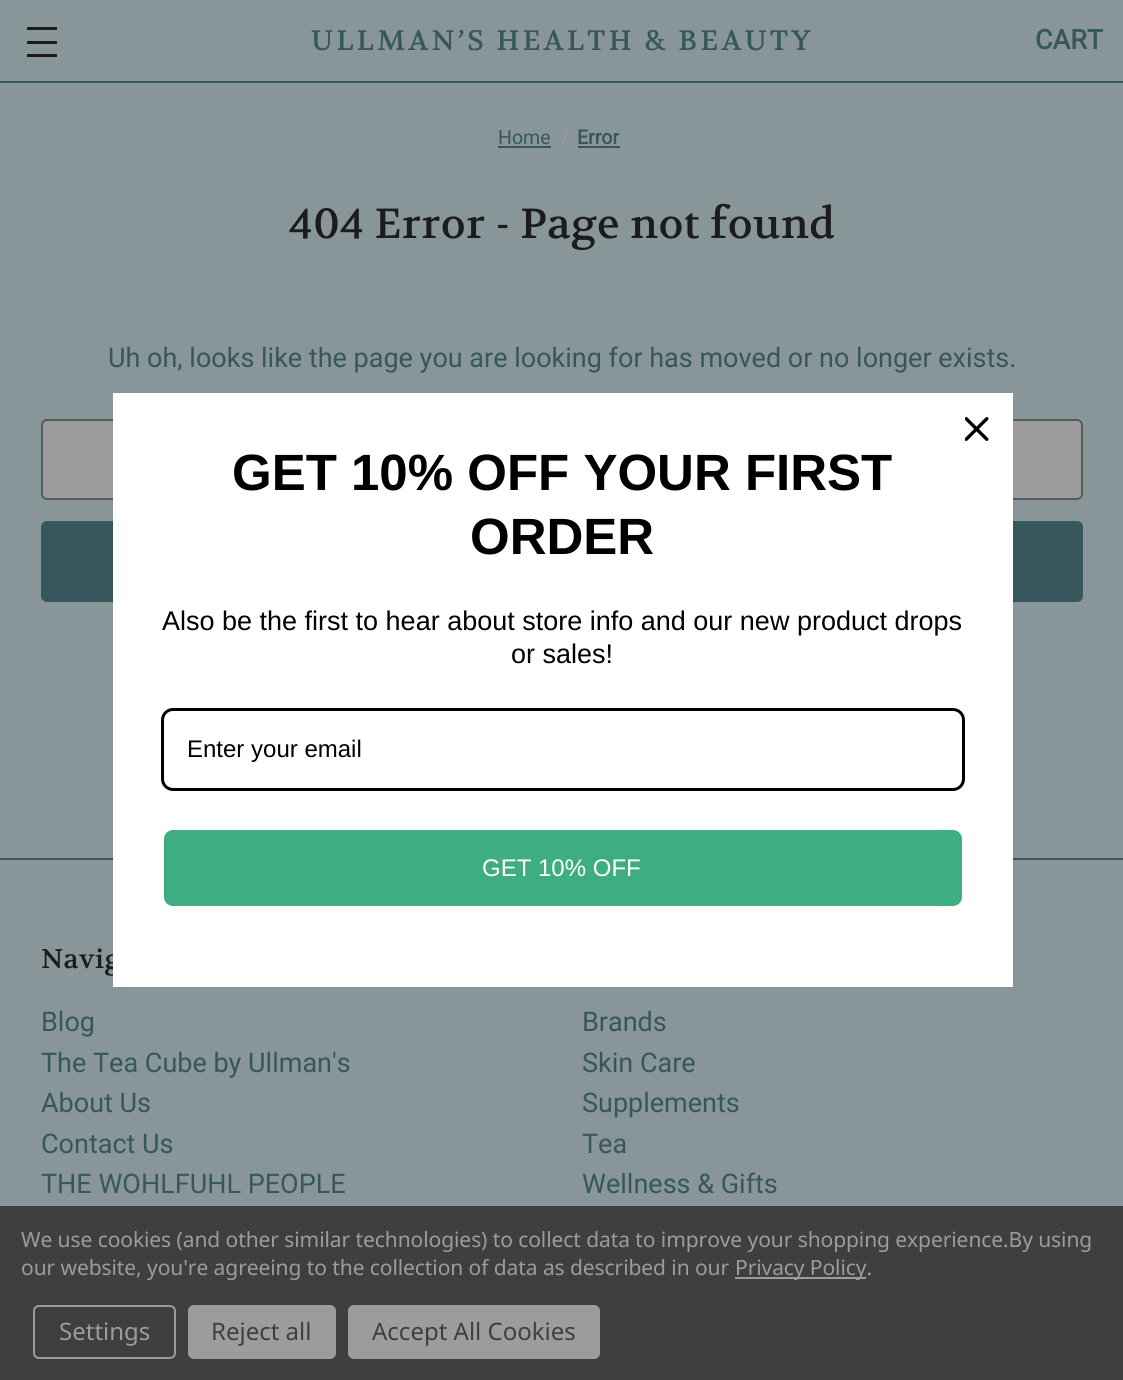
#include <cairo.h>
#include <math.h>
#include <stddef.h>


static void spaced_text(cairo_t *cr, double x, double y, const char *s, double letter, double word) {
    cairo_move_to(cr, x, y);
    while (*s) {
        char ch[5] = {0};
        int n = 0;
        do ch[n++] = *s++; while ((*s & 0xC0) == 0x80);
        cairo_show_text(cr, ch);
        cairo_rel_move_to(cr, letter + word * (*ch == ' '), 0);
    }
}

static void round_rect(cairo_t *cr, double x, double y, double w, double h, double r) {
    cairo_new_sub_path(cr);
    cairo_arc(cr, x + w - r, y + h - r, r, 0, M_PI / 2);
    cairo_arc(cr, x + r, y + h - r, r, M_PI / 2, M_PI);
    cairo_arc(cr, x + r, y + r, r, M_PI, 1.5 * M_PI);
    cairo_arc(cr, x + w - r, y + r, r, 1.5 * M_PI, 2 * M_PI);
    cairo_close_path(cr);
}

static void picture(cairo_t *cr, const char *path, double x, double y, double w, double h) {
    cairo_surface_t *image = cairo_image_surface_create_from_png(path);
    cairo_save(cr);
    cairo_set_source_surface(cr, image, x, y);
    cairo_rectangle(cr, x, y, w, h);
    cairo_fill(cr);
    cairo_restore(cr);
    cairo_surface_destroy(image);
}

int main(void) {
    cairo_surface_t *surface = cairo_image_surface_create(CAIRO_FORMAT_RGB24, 1123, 1380);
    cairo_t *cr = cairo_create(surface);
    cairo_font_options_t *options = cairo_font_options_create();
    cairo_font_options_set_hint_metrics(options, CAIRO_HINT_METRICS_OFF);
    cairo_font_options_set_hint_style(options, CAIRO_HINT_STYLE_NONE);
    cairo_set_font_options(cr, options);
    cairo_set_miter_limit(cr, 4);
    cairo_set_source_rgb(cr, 0.533, 0.588, 0.6);
    cairo_paint(cr);
    cairo_set_source_rgb(cr, 0.212, 0.341, 0.357);
    cairo_rectangle(cr, 0, 81, 1123, 2);
    cairo_fill(cr);
    cairo_set_source_rgb(cr, 0.11, 0.11, 0.11);
    cairo_rectangle(cr, 27, 41, 30, 3);
    cairo_fill(cr);
    cairo_rectangle(cr, 27, 27, 30, 3);
    cairo_fill(cr);
    cairo_rectangle(cr, 27, 54, 30, 3);
    cairo_fill(cr);
    cairo_select_font_face(cr, "Volkhov", CAIRO_FONT_SLANT_NORMAL, CAIRO_FONT_WEIGHT_NORMAL);
    cairo_set_font_size(cr, 28.1);
    cairo_set_source_rgb(cr, 0.212, 0.341, 0.357);
    spaced_text(cr, 311, 50, "ULLMAN’S HEALTH & BEAUTY", 3, 0);
    cairo_select_font_face(cr, "Roboto", CAIRO_FONT_SLANT_NORMAL, CAIRO_FONT_WEIGHT_BOLD);
    cairo_set_font_size(cr, 27);
    cairo_move_to(cr, 1035, 49);
    cairo_show_text(cr, "CART");
    cairo_select_font_face(cr, "Roboto", CAIRO_FONT_SLANT_NORMAL, CAIRO_FONT_WEIGHT_NORMAL);
    cairo_set_font_size(cr, 19.5);
    cairo_move_to(cr, 498, 144);
    cairo_show_text(cr, "Home");
    cairo_rectangle(cr, 498, 146, 53, 2);
    cairo_fill(cr);
    cairo_set_source_rgb(cr, 0.612, 0.612, 0.612);
    cairo_new_path(cr);
    cairo_move_to(cr, 566, 130);
    cairo_line_to(cr, 567.5, 130.5);
    cairo_line_to(cr, 563, 145.5);
    cairo_line_to(cr, 562, 145);
    cairo_close_path(cr);
    cairo_fill(cr);
    cairo_select_font_face(cr, "Roboto", CAIRO_FONT_SLANT_NORMAL, CAIRO_FONT_WEIGHT_BOLD);
    cairo_set_source_rgb(cr, 0.212, 0.341, 0.357);
    cairo_move_to(cr, 577, 144);
    cairo_show_text(cr, "Error");
    cairo_rectangle(cr, 578, 146, 42, 2);
    cairo_fill(cr);
    cairo_select_font_face(cr, "Volkhov", CAIRO_FONT_SLANT_NORMAL, CAIRO_FONT_WEIGHT_NORMAL);
    cairo_set_font_size(cr, 42);
    cairo_set_source_rgb(cr, 0.11, 0.11, 0.11);
    spaced_text(cr, 289, 238, "404 Error - Page not found", 0.4, 0);
    cairo_select_font_face(cr, "Roboto", CAIRO_FONT_SLANT_NORMAL, CAIRO_FONT_WEIGHT_NORMAL);
    cairo_set_font_size(cr, 27);
    cairo_set_source_rgb(cr, 0.212, 0.341, 0.357);
    cairo_move_to(cr, 108, 367);
    cairo_show_text(cr, "Uh oh, looks like the page you are looking for has moved or no longer exists.");
    cairo_set_source_rgb(cr, 0.612, 0.612, 0.612);
    round_rect(cr, 42, 420, 1040, 79, 5);
    cairo_fill_preserve(cr);
    cairo_set_source_rgb(cr, 0.325, 0.365, 0.369);
    cairo_stroke(cr);
    cairo_set_source_rgb(cr, 0.212, 0.341, 0.357);
    round_rect(cr, 42, 522, 1040, 79, 5);
    cairo_fill_preserve(cr);
    cairo_stroke(cr);
    cairo_rectangle(cr, 0, 858, 1123, 2);
    cairo_fill(cr);
    cairo_select_font_face(cr, "Volkhov", CAIRO_FONT_SLANT_NORMAL, CAIRO_FONT_WEIGHT_NORMAL);
    cairo_set_source_rgb(cr, 0.11, 0.11, 0.11);
    spaced_text(cr, 41, 968, "Navig", 0.4, 0);
    cairo_set_source_rgb(cr, 1, 1, 1);
    cairo_rectangle(cr, 113, 393, 900, 594);
    cairo_fill(cr);
    picture(cr, "img1.png", 965, 417, 24, 24);
    cairo_select_font_face(cr, "Liberation Sans", CAIRO_FONT_SLANT_NORMAL, CAIRO_FONT_WEIGHT_BOLD);
    cairo_set_font_size(cr, 51);
    cairo_set_source_rgb(cr, 0, 0, 0);
    cairo_move_to(cr, 232, 490);
    cairo_show_text(cr, "GET 10% OFF YOUR FIRST");
    cairo_move_to(cr, 470, 554);
    cairo_show_text(cr, "ORDER");
    cairo_select_font_face(cr, "Liberation Sans", CAIRO_FONT_SLANT_NORMAL, CAIRO_FONT_WEIGHT_NORMAL);
    cairo_set_font_size(cr, 27);
    cairo_move_to(cr, 162, 630);
    cairo_show_text(cr, "Also be the first to hear about store info and our new product drops");
    cairo_move_to(cr, 511, 663);
    cairo_show_text(cr, "or sales!");
    round_rect(cr, 162.5, 709.5, 801, 80, 10.5);
    cairo_set_line_width(cr, 3);
    cairo_stroke(cr);
    cairo_set_font_size(cr, 24);
    cairo_move_to(cr, 187, 757);
    cairo_show_text(cr, "Enter your email");
    cairo_set_source_rgb(cr, 0.243, 0.678, 0.51);
    round_rect(cr, 162.5, 828.5, 801, 79, 10.5);
    cairo_fill_preserve(cr);
    cairo_set_source_rgb(cr, 1, 1, 1);
    cairo_stroke(cr);
    cairo_move_to(cr, 482, 876);
    cairo_show_text(cr, "GET 10% OFF");
    cairo_select_font_face(cr, "Roboto", CAIRO_FONT_SLANT_NORMAL, CAIRO_FONT_WEIGHT_NORMAL);
    cairo_set_font_size(cr, 27);
    cairo_set_source_rgb(cr, 0.212, 0.341, 0.357);
    cairo_move_to(cr, 41, 1031);
    cairo_show_text(cr, "Blog");
    cairo_move_to(cr, 41, 1072);
    cairo_show_text(cr, "The Tea Cube by Ullman's");
    cairo_move_to(cr, 41, 1112);
    cairo_show_text(cr, "About Us");
    cairo_move_to(cr, 41, 1153);
    cairo_show_text(cr, "Contact Us");
    cairo_move_to(cr, 41, 1193);
    cairo_show_text(cr, "THE WOHLFUHL PEOPLE");
    cairo_move_to(cr, 582, 1031);
    cairo_show_text(cr, "Brands");
    cairo_move_to(cr, 582, 1072);
    cairo_show_text(cr, "Skin Care");
    cairo_move_to(cr, 582, 1112);
    cairo_show_text(cr, "Supplements");
    cairo_move_to(cr, 582, 1153);
    cairo_show_text(cr, "Tea");
    cairo_move_to(cr, 582, 1193);
    cairo_show_text(cr, "Wellness & Gifts");
    cairo_set_source_rgb(cr, 0.247, 0.247, 0.247);
    cairo_rectangle(cr, 0, 1206, 1123, 174);
    cairo_fill(cr);
    cairo_select_font_face(cr, "Noto Sans", CAIRO_FONT_SLANT_NORMAL, CAIRO_FONT_WEIGHT_NORMAL);
    cairo_set_font_size(cr, 21);
    cairo_set_source_rgb(cr, 0.612, 0.612, 0.612);
    spaced_text(cr, 21, 1247, "We use cookies (and other similar technologies) to collect data to improve your shopping experience.By using", -0.08, 0);
    spaced_text(cr, 21, 1275, "our website, you're agreeing to the collection of data as described in our", -0.08, 0);
    cairo_rectangle(cr, 735, 1277, 131, 2);
    cairo_fill(cr);
    spaced_text(cr, 735, 1275, "Privacy Policy.", -0.08, 0);
    round_rect(cr, 34, 1306, 141, 52, 5);
    cairo_set_line_width(cr, 2);
    cairo_stroke(cr);
    cairo_set_font_size(cr, 24);
    cairo_move_to(cr, 59, 1340);
    cairo_show_text(cr, "Settings");
    round_rect(cr, 188, 1305, 148, 54, 6);
    cairo_fill(cr);
    cairo_set_source_rgb(cr, 0.247, 0.247, 0.247);
    cairo_move_to(cr, 211, 1340);
    cairo_show_text(cr, "Reject all");
    cairo_set_source_rgb(cr, 0.612, 0.612, 0.612);
    round_rect(cr, 348, 1305, 252, 54, 6);
    cairo_fill(cr);
    cairo_set_source_rgb(cr, 0.247, 0.247, 0.247);
    cairo_move_to(cr, 372, 1340);
    cairo_show_text(cr, "Accept All Cookies");
    cairo_surface_write_to_png(surface, "page.png");
    cairo_font_options_destroy(options);
    cairo_destroy(cr);
    cairo_surface_destroy(surface);
    return 0;
}
